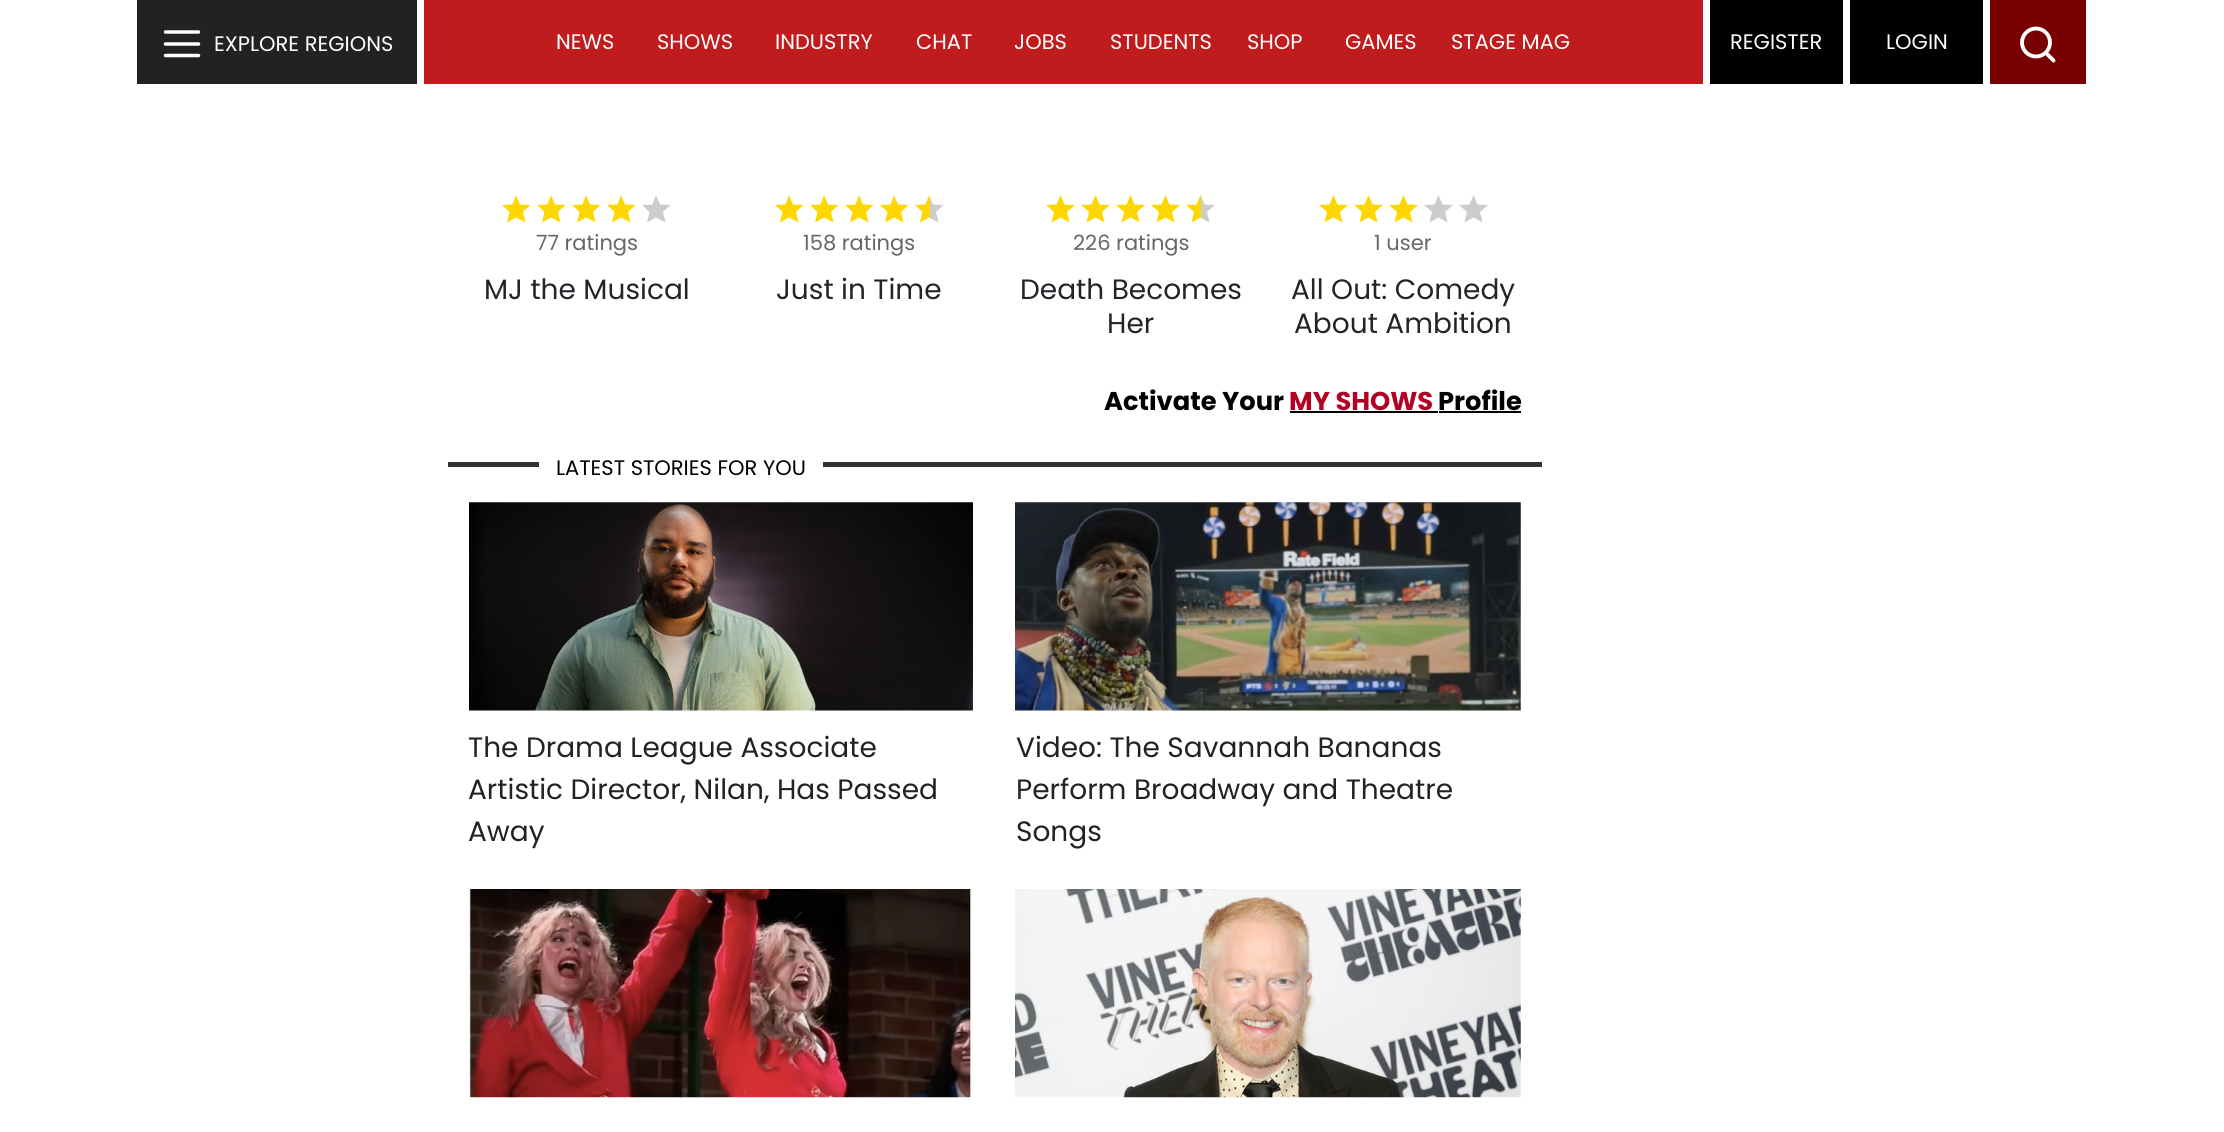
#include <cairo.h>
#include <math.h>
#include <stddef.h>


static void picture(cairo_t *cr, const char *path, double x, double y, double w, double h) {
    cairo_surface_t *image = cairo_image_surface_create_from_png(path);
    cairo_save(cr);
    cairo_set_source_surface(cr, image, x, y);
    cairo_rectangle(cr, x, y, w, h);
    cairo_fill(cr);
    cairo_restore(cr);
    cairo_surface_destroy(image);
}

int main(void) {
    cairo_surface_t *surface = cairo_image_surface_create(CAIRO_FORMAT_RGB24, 2224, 1132);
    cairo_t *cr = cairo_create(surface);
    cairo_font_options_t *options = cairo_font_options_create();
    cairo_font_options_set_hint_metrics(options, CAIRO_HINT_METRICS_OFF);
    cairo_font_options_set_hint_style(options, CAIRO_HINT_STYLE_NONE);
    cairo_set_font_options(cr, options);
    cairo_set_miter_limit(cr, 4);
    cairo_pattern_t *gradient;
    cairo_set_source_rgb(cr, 1, 1, 1);
    cairo_paint(cr);
    cairo_set_source_rgb(cr, 0.133, 0.133, 0.133);
    cairo_rectangle(cr, 137, 0, 280, 84);
    cairo_fill(cr);
    cairo_new_path(cr);
    cairo_move_to(cr, 165.5, 32);
    cairo_line_to(cr, 198.5, 32);
    cairo_move_to(cr, 165.5, 44);
    cairo_line_to(cr, 198.5, 44);
    cairo_move_to(cr, 165.5, 55.5);
    cairo_line_to(cr, 198.5, 55.5);
    cairo_set_source_rgb(cr, 1, 1, 1);
    cairo_set_line_width(cr, 3.5);
    cairo_set_line_cap(cr, CAIRO_LINE_CAP_ROUND);
    cairo_stroke(cr);
    cairo_select_font_face(cr, "Poppins", CAIRO_FONT_SLANT_NORMAL, CAIRO_FONT_WEIGHT_NORMAL);
    cairo_set_font_size(cr, 21);
    cairo_move_to(cr, 214, 51);
    cairo_show_text(cr, "EXPLORE REGIONS");
    cairo_set_source_rgb(cr, 0.753, 0.106, 0.114);
    cairo_rectangle(cr, 424, 0, 1279, 84);
    cairo_fill(cr);
    cairo_set_source_rgb(cr, 1, 1, 1);
    cairo_move_to(cr, 556, 49);
    cairo_show_text(cr, "NEWS");
    cairo_move_to(cr, 657, 49);
    cairo_show_text(cr, "SHOWS");
    cairo_move_to(cr, 775, 49);
    cairo_show_text(cr, "INDUSTRY");
    cairo_move_to(cr, 916, 49);
    cairo_show_text(cr, "CHAT");
    cairo_move_to(cr, 1014, 49);
    cairo_show_text(cr, "JOBS");
    cairo_move_to(cr, 1110, 49);
    cairo_show_text(cr, "STUDENTS");
    cairo_move_to(cr, 1247, 49);
    cairo_show_text(cr, "SHOP");
    cairo_move_to(cr, 1345, 49);
    cairo_show_text(cr, "GAMES");
    cairo_move_to(cr, 1451, 49);
    cairo_show_text(cr, "STAGE MAG");
    cairo_set_source_rgb(cr, 0, 0, 0);
    cairo_rectangle(cr, 1710, 0, 133, 84);
    cairo_fill(cr);
    cairo_set_source_rgb(cr, 1, 1, 1);
    cairo_move_to(cr, 1730, 49);
    cairo_show_text(cr, "REGISTER");
    cairo_set_source_rgb(cr, 0, 0, 0);
    cairo_rectangle(cr, 1850, 0, 133, 84);
    cairo_fill(cr);
    cairo_set_source_rgb(cr, 1, 1, 1);
    cairo_move_to(cr, 1886, 49);
    cairo_show_text(cr, "LOGIN");
    cairo_set_source_rgb(cr, 0.471, 0, 0);
    cairo_rectangle(cr, 1990, 0, 96, 84);
    cairo_fill(cr);
    cairo_arc(cr, 2036, 42.5, 14, 0, 2 * M_PI);
    cairo_set_source_rgb(cr, 1, 1, 1);
    cairo_set_line_width(cr, 3.9);
    cairo_set_line_cap(cr, CAIRO_LINE_CAP_BUTT);
    cairo_stroke(cr);
    cairo_new_path(cr);
    cairo_move_to(cr, 2053.5, 60.5);
    cairo_line_to(cr, 2047.5, 54.5);
    cairo_set_line_cap(cr, CAIRO_LINE_CAP_ROUND);
    cairo_stroke(cr);
    cairo_set_source_rgb(cr, 1, 0.843, 0);
    cairo_new_path(cr);
    cairo_move_to(cr, 516, 195);
    cairo_line_to(cr, 520, 204.5);
    cairo_line_to(cr, 530.5, 205);
    cairo_line_to(cr, 523, 212);
    cairo_line_to(cr, 525.5, 222.5);
    cairo_line_to(cr, 516, 217.5);
    cairo_line_to(cr, 507, 222.5);
    cairo_line_to(cr, 509.5, 212);
    cairo_line_to(cr, 502, 205);
    cairo_line_to(cr, 512.5, 204.5);
    cairo_close_path(cr);
    cairo_fill(cr);
    cairo_new_path(cr);
    cairo_move_to(cr, 551, 195);
    cairo_line_to(cr, 555, 204.5);
    cairo_line_to(cr, 565.5, 205);
    cairo_line_to(cr, 558, 212);
    cairo_line_to(cr, 560.5, 222.5);
    cairo_line_to(cr, 551, 217.5);
    cairo_line_to(cr, 542, 222.5);
    cairo_line_to(cr, 544.5, 212);
    cairo_line_to(cr, 537, 205);
    cairo_line_to(cr, 547.5, 204.5);
    cairo_close_path(cr);
    cairo_fill(cr);
    cairo_new_path(cr);
    cairo_move_to(cr, 586, 195);
    cairo_line_to(cr, 590, 204.5);
    cairo_line_to(cr, 600.5, 205);
    cairo_line_to(cr, 593, 212);
    cairo_line_to(cr, 595.5, 222.5);
    cairo_line_to(cr, 586, 217.5);
    cairo_line_to(cr, 577, 222.5);
    cairo_line_to(cr, 579.5, 212);
    cairo_line_to(cr, 572, 205);
    cairo_line_to(cr, 582.5, 204.5);
    cairo_close_path(cr);
    cairo_fill(cr);
    cairo_new_path(cr);
    cairo_move_to(cr, 621, 195);
    cairo_line_to(cr, 625, 204.5);
    cairo_line_to(cr, 635.5, 205);
    cairo_line_to(cr, 628, 212);
    cairo_line_to(cr, 630.5, 222.5);
    cairo_line_to(cr, 621, 217.5);
    cairo_line_to(cr, 612, 222.5);
    cairo_line_to(cr, 614.5, 212);
    cairo_line_to(cr, 607, 205);
    cairo_line_to(cr, 617.5, 204.5);
    cairo_close_path(cr);
    cairo_fill(cr);
    cairo_set_source_rgb(cr, 0.8, 0.8, 0.8);
    cairo_new_path(cr);
    cairo_move_to(cr, 656, 195);
    cairo_line_to(cr, 660, 204.5);
    cairo_line_to(cr, 670.5, 205);
    cairo_line_to(cr, 663, 212);
    cairo_line_to(cr, 665.5, 222.5);
    cairo_line_to(cr, 656, 217.5);
    cairo_line_to(cr, 647, 222.5);
    cairo_line_to(cr, 649.5, 212);
    cairo_line_to(cr, 642, 205);
    cairo_line_to(cr, 652.5, 204.5);
    cairo_close_path(cr);
    cairo_fill(cr);
    cairo_set_source_rgb(cr, 0.4, 0.4, 0.4);
    cairo_move_to(cr, 536, 250);
    cairo_show_text(cr, "77 ratings");
    cairo_set_font_size(cr, 28);
    cairo_set_source_rgb(cr, 0.129, 0.145, 0.161);
    cairo_move_to(cr, 484, 299);
    cairo_show_text(cr, "MJ the Musical");
    cairo_set_source_rgb(cr, 1, 0.843, 0);
    cairo_new_path(cr);
    cairo_move_to(cr, 789, 195);
    cairo_line_to(cr, 793, 204.5);
    cairo_line_to(cr, 803.5, 205);
    cairo_line_to(cr, 796, 212);
    cairo_line_to(cr, 798.5, 222.5);
    cairo_line_to(cr, 789, 217.5);
    cairo_line_to(cr, 780, 222.5);
    cairo_line_to(cr, 782.5, 212);
    cairo_line_to(cr, 775, 205);
    cairo_line_to(cr, 785.5, 204.5);
    cairo_close_path(cr);
    cairo_fill(cr);
    cairo_new_path(cr);
    cairo_move_to(cr, 824, 195);
    cairo_line_to(cr, 828, 204.5);
    cairo_line_to(cr, 838.5, 205);
    cairo_line_to(cr, 831, 212);
    cairo_line_to(cr, 833.5, 222.5);
    cairo_line_to(cr, 824, 217.5);
    cairo_line_to(cr, 815, 222.5);
    cairo_line_to(cr, 817.5, 212);
    cairo_line_to(cr, 810, 205);
    cairo_line_to(cr, 820.5, 204.5);
    cairo_close_path(cr);
    cairo_fill(cr);
    cairo_new_path(cr);
    cairo_move_to(cr, 859, 195);
    cairo_line_to(cr, 863, 204.5);
    cairo_line_to(cr, 873.5, 205);
    cairo_line_to(cr, 866, 212);
    cairo_line_to(cr, 868.5, 222.5);
    cairo_line_to(cr, 859, 217.5);
    cairo_line_to(cr, 850, 222.5);
    cairo_line_to(cr, 852.5, 212);
    cairo_line_to(cr, 845, 205);
    cairo_line_to(cr, 855.5, 204.5);
    cairo_close_path(cr);
    cairo_fill(cr);
    cairo_new_path(cr);
    cairo_move_to(cr, 894, 195);
    cairo_line_to(cr, 898, 204.5);
    cairo_line_to(cr, 908.5, 205);
    cairo_line_to(cr, 901, 212);
    cairo_line_to(cr, 903.5, 222.5);
    cairo_line_to(cr, 894, 217.5);
    cairo_line_to(cr, 885, 222.5);
    cairo_line_to(cr, 887.5, 212);
    cairo_line_to(cr, 880, 205);
    cairo_line_to(cr, 890.5, 204.5);
    cairo_close_path(cr);
    cairo_fill(cr);
    gradient = cairo_pattern_create_linear(915, 195, 944, 195);
    cairo_pattern_add_color_stop_rgba(gradient, 0.5, 1, 0.843, 0, 1);
    cairo_pattern_add_color_stop_rgba(gradient, 0.5, 0.8, 0.8, 0.8, 1);
    cairo_set_source(cr, gradient);
    cairo_pattern_destroy(gradient);
    cairo_new_path(cr);
    cairo_move_to(cr, 929, 195);
    cairo_line_to(cr, 933, 204.5);
    cairo_line_to(cr, 943.5, 205);
    cairo_line_to(cr, 936, 212);
    cairo_line_to(cr, 938.5, 222.5);
    cairo_line_to(cr, 929, 217.5);
    cairo_line_to(cr, 920, 222.5);
    cairo_line_to(cr, 922.5, 212);
    cairo_line_to(cr, 915, 205);
    cairo_line_to(cr, 925.5, 204.5);
    cairo_close_path(cr);
    cairo_fill(cr);
    cairo_set_font_size(cr, 21);
    cairo_set_source_rgb(cr, 0.4, 0.4, 0.4);
    cairo_move_to(cr, 803, 250);
    cairo_show_text(cr, "158 ratings");
    cairo_set_font_size(cr, 28);
    cairo_set_source_rgb(cr, 0.129, 0.145, 0.161);
    cairo_move_to(cr, 776, 299);
    cairo_show_text(cr, "Just in Time");
    cairo_set_source_rgb(cr, 1, 0.843, 0);
    cairo_new_path(cr);
    cairo_move_to(cr, 1060.5, 195);
    cairo_line_to(cr, 1064.5, 204.5);
    cairo_line_to(cr, 1075, 205);
    cairo_line_to(cr, 1067, 212);
    cairo_line_to(cr, 1069.5, 222.5);
    cairo_line_to(cr, 1060.5, 217.5);
    cairo_line_to(cr, 1051.5, 222.5);
    cairo_line_to(cr, 1054, 212);
    cairo_line_to(cr, 1046, 205);
    cairo_line_to(cr, 1056.5, 204.5);
    cairo_close_path(cr);
    cairo_fill(cr);
    cairo_new_path(cr);
    cairo_move_to(cr, 1095.5, 195);
    cairo_line_to(cr, 1099.5, 204.5);
    cairo_line_to(cr, 1110, 205);
    cairo_line_to(cr, 1102, 212);
    cairo_line_to(cr, 1104.5, 222.5);
    cairo_line_to(cr, 1095.5, 217.5);
    cairo_line_to(cr, 1086.5, 222.5);
    cairo_line_to(cr, 1089, 212);
    cairo_line_to(cr, 1081, 205);
    cairo_line_to(cr, 1091.5, 204.5);
    cairo_close_path(cr);
    cairo_fill(cr);
    cairo_new_path(cr);
    cairo_move_to(cr, 1130.5, 195);
    cairo_line_to(cr, 1134.5, 204.5);
    cairo_line_to(cr, 1145, 205);
    cairo_line_to(cr, 1137, 212);
    cairo_line_to(cr, 1139.5, 222.5);
    cairo_line_to(cr, 1130.5, 217.5);
    cairo_line_to(cr, 1121.5, 222.5);
    cairo_line_to(cr, 1124, 212);
    cairo_line_to(cr, 1116, 205);
    cairo_line_to(cr, 1126.5, 204.5);
    cairo_close_path(cr);
    cairo_fill(cr);
    cairo_new_path(cr);
    cairo_move_to(cr, 1165.5, 195);
    cairo_line_to(cr, 1169.5, 204.5);
    cairo_line_to(cr, 1180, 205);
    cairo_line_to(cr, 1172, 212);
    cairo_line_to(cr, 1174.5, 222.5);
    cairo_line_to(cr, 1165.5, 217.5);
    cairo_line_to(cr, 1156.5, 222.5);
    cairo_line_to(cr, 1159, 212);
    cairo_line_to(cr, 1151, 205);
    cairo_line_to(cr, 1161.5, 204.5);
    cairo_close_path(cr);
    cairo_fill(cr);
    gradient = cairo_pattern_create_linear(1186, 195, 1215, 195);
    cairo_pattern_add_color_stop_rgba(gradient, 0.5, 1, 0.843, 0, 1);
    cairo_pattern_add_color_stop_rgba(gradient, 0.5, 0.8, 0.8, 0.8, 1);
    cairo_set_source(cr, gradient);
    cairo_pattern_destroy(gradient);
    cairo_new_path(cr);
    cairo_move_to(cr, 1200.5, 195);
    cairo_line_to(cr, 1204.5, 204.5);
    cairo_line_to(cr, 1215, 205);
    cairo_line_to(cr, 1207, 212);
    cairo_line_to(cr, 1209.5, 222.5);
    cairo_line_to(cr, 1200.5, 217.5);
    cairo_line_to(cr, 1191.5, 222.5);
    cairo_line_to(cr, 1194, 212);
    cairo_line_to(cr, 1186, 205);
    cairo_line_to(cr, 1196.5, 204.5);
    cairo_close_path(cr);
    cairo_fill(cr);
    cairo_set_font_size(cr, 21);
    cairo_set_source_rgb(cr, 0.4, 0.4, 0.4);
    cairo_move_to(cr, 1073, 250);
    cairo_show_text(cr, "226 ratings");
    cairo_set_font_size(cr, 28);
    cairo_set_source_rgb(cr, 0.129, 0.145, 0.161);
    cairo_move_to(cr, 1020, 299);
    cairo_show_text(cr, "Death Becomes");
    cairo_move_to(cr, 1107, 333);
    cairo_show_text(cr, "Her");
    cairo_set_source_rgb(cr, 1, 0.843, 0);
    cairo_new_path(cr);
    cairo_move_to(cr, 1333.5, 195);
    cairo_line_to(cr, 1337.5, 204.5);
    cairo_line_to(cr, 1348, 205);
    cairo_line_to(cr, 1340, 212);
    cairo_line_to(cr, 1342.5, 222.5);
    cairo_line_to(cr, 1333.5, 217.5);
    cairo_line_to(cr, 1324.5, 222.5);
    cairo_line_to(cr, 1327, 212);
    cairo_line_to(cr, 1319, 205);
    cairo_line_to(cr, 1329.5, 204.5);
    cairo_close_path(cr);
    cairo_fill(cr);
    cairo_new_path(cr);
    cairo_move_to(cr, 1368.5, 195);
    cairo_line_to(cr, 1372.5, 204.5);
    cairo_line_to(cr, 1383, 205);
    cairo_line_to(cr, 1375, 212);
    cairo_line_to(cr, 1377.5, 222.5);
    cairo_line_to(cr, 1368.5, 217.5);
    cairo_line_to(cr, 1359.5, 222.5);
    cairo_line_to(cr, 1362, 212);
    cairo_line_to(cr, 1354, 205);
    cairo_line_to(cr, 1364.5, 204.5);
    cairo_close_path(cr);
    cairo_fill(cr);
    cairo_new_path(cr);
    cairo_move_to(cr, 1403.5, 195);
    cairo_line_to(cr, 1407.5, 204.5);
    cairo_line_to(cr, 1418, 205);
    cairo_line_to(cr, 1410, 212);
    cairo_line_to(cr, 1412.5, 222.5);
    cairo_line_to(cr, 1403.5, 217.5);
    cairo_line_to(cr, 1394.5, 222.5);
    cairo_line_to(cr, 1397, 212);
    cairo_line_to(cr, 1389, 205);
    cairo_line_to(cr, 1399.5, 204.5);
    cairo_close_path(cr);
    cairo_fill(cr);
    cairo_set_source_rgb(cr, 0.8, 0.8, 0.8);
    cairo_new_path(cr);
    cairo_move_to(cr, 1438.5, 195);
    cairo_line_to(cr, 1442.5, 204.5);
    cairo_line_to(cr, 1453, 205);
    cairo_line_to(cr, 1445, 212);
    cairo_line_to(cr, 1447.5, 222.5);
    cairo_line_to(cr, 1438.5, 217.5);
    cairo_line_to(cr, 1429.5, 222.5);
    cairo_line_to(cr, 1432, 212);
    cairo_line_to(cr, 1424, 205);
    cairo_line_to(cr, 1434.5, 204.5);
    cairo_close_path(cr);
    cairo_fill(cr);
    cairo_new_path(cr);
    cairo_move_to(cr, 1473.5, 195);
    cairo_line_to(cr, 1477.5, 204.5);
    cairo_line_to(cr, 1488, 205);
    cairo_line_to(cr, 1480, 212);
    cairo_line_to(cr, 1482.5, 222.5);
    cairo_line_to(cr, 1473.5, 217.5);
    cairo_line_to(cr, 1464.5, 222.5);
    cairo_line_to(cr, 1467, 212);
    cairo_line_to(cr, 1459, 205);
    cairo_line_to(cr, 1469.5, 204.5);
    cairo_close_path(cr);
    cairo_fill(cr);
    cairo_set_font_size(cr, 21);
    cairo_set_source_rgb(cr, 0.4, 0.4, 0.4);
    cairo_move_to(cr, 1374, 250);
    cairo_show_text(cr, "1 user");
    cairo_set_font_size(cr, 28);
    cairo_set_source_rgb(cr, 0.129, 0.145, 0.161);
    cairo_move_to(cr, 1291, 299);
    cairo_show_text(cr, "All Out: Comedy");
    cairo_move_to(cr, 1294, 333);
    cairo_show_text(cr, "About Ambition");
    cairo_select_font_face(cr, "Poppins", CAIRO_FONT_SLANT_NORMAL, CAIRO_FONT_WEIGHT_BOLD);
    cairo_set_font_size(cr, 25.75);
    cairo_set_source_rgb(cr, 0, 0, 0);
    cairo_move_to(cr, 1104, 410);
    cairo_show_text(cr, "Activate Your");
    cairo_set_source_rgb(cr, 0.698, 0.008, 0.137);
    cairo_move_to(cr, 1289, 410);
    cairo_show_text(cr, "MY SHOWS");
    cairo_set_source_rgb(cr, 0, 0, 0);
    cairo_rectangle(cr, 1290, 411, 148, 2);
    cairo_fill(cr);
    cairo_move_to(cr, 1438, 410);
    cairo_show_text(cr, "Profile");
    cairo_rectangle(cr, 1439, 411, 82, 2);
    cairo_fill(cr);
    cairo_set_source_rgb(cr, 0.2, 0.2, 0.2);
    cairo_rectangle(cr, 448, 462, 1094, 5);
    cairo_fill(cr);
    cairo_set_source_rgb(cr, 1, 1, 1);
    cairo_rectangle(cr, 539, 462, 284, 5);
    cairo_fill(cr);
    cairo_select_font_face(cr, "Poppins", CAIRO_FONT_SLANT_NORMAL, CAIRO_FONT_WEIGHT_NORMAL);
    cairo_set_font_size(cr, 21);
    cairo_set_source_rgb(cr, 0, 0, 0);
    cairo_move_to(cr, 556, 475);
    cairo_show_text(cr, "LATEST STORIES FOR YOU");
    picture(cr, "img1.png", 469, 502, 504, 209);
    cairo_set_font_size(cr, 28);
    cairo_set_source_rgb(cr, 0.133, 0.133, 0.133);
    cairo_move_to(cr, 468, 757);
    cairo_show_text(cr, "The Drama League Associate");
    cairo_move_to(cr, 468, 799);
    cairo_show_text(cr, "Artistic Director, Nilan, Has Passed");
    cairo_move_to(cr, 468, 841);
    cairo_show_text(cr, "Away");
    picture(cr, "img2.png", 1015, 502, 506, 209);
    cairo_move_to(cr, 1016, 757);
    cairo_show_text(cr, "Video: The Savannah Bananas");
    cairo_move_to(cr, 1016, 799);
    cairo_show_text(cr, "Perform Broadway and Theatre");
    cairo_move_to(cr, 1016, 841);
    cairo_show_text(cr, "Songs");
    picture(cr, "img3.png", 469, 889, 504, 209);
    picture(cr, "img4.png", 1015, 889, 506, 209);
    cairo_surface_write_to_png(surface, "page.png");
    cairo_font_options_destroy(options);
    cairo_destroy(cr);
    cairo_surface_destroy(surface);
    return 0;
}
